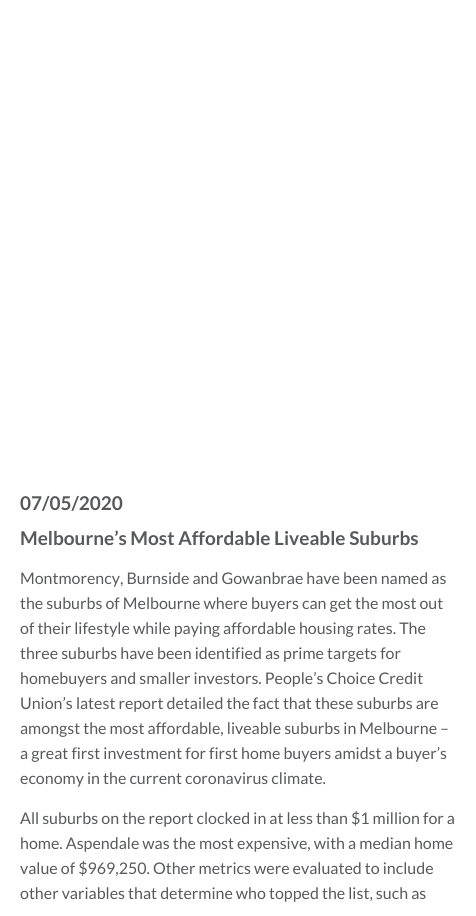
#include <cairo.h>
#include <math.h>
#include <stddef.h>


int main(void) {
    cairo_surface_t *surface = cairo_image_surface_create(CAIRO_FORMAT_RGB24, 476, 916);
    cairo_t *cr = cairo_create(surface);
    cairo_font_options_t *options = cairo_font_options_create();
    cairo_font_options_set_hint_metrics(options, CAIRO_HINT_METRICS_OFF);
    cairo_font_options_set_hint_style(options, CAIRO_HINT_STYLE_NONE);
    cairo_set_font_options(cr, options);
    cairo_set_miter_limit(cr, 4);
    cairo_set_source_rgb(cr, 1, 1, 1);
    cairo_paint(cr);
    cairo_select_font_face(cr, "Lato", CAIRO_FONT_SLANT_NORMAL, CAIRO_FONT_WEIGHT_BOLD);
    cairo_set_font_size(cr, 19);
    cairo_set_source_rgb(cr, 0.345, 0.349, 0.357);
    cairo_move_to(cr, 20, 510);
    cairo_show_text(cr, "07/05/2020");
    cairo_move_to(cr, 20, 545);
    cairo_show_text(cr, "Melbourne’s Most Affordable Liveable Suburbs");
    cairo_select_font_face(cr, "Lato", CAIRO_FONT_SLANT_NORMAL, CAIRO_FONT_WEIGHT_NORMAL);
    cairo_set_font_size(cr, 16);
    cairo_move_to(cr, 20, 584);
    cairo_show_text(cr, "Montmorency, Burnside and Gowanbrae have been named as");
    cairo_move_to(cr, 20, 609);
    cairo_show_text(cr, "the suburbs of Melbourne where buyers can get the most out");
    cairo_move_to(cr, 20, 634);
    cairo_show_text(cr, "of their lifestyle while paying affordable housing rates. The");
    cairo_move_to(cr, 20, 659);
    cairo_show_text(cr, "three suburbs have been identified as prime targets for");
    cairo_move_to(cr, 20, 684);
    cairo_show_text(cr, "homebuyers and smaller investors. People’s Choice Credit");
    cairo_move_to(cr, 20, 709);
    cairo_show_text(cr, "Union’s latest report detailed the fact that these suburbs are");
    cairo_move_to(cr, 20, 734);
    cairo_show_text(cr, "amongst the most affordable, liveable suburbs in Melbourne –");
    cairo_move_to(cr, 20, 759);
    cairo_show_text(cr, "a great first investment for first home buyers amidst a buyer’s");
    cairo_move_to(cr, 20, 784);
    cairo_show_text(cr, "economy in the current coronavirus climate.");
    cairo_move_to(cr, 20, 824);
    cairo_show_text(cr, "All suburbs on the report clocked in at less than $1 million for a");
    cairo_move_to(cr, 20, 849);
    cairo_show_text(cr, "home. Aspendale was the most expensive, with a median home");
    cairo_move_to(cr, 20, 874);
    cairo_show_text(cr, "value of $969,250. Other metrics were evaluated to include");
    cairo_move_to(cr, 20, 899);
    cairo_show_text(cr, "other variables that determine who topped the list, such as");
    cairo_surface_write_to_png(surface, "page.png");
    cairo_font_options_destroy(options);
    cairo_destroy(cr);
    cairo_surface_destroy(surface);
    return 0;
}
